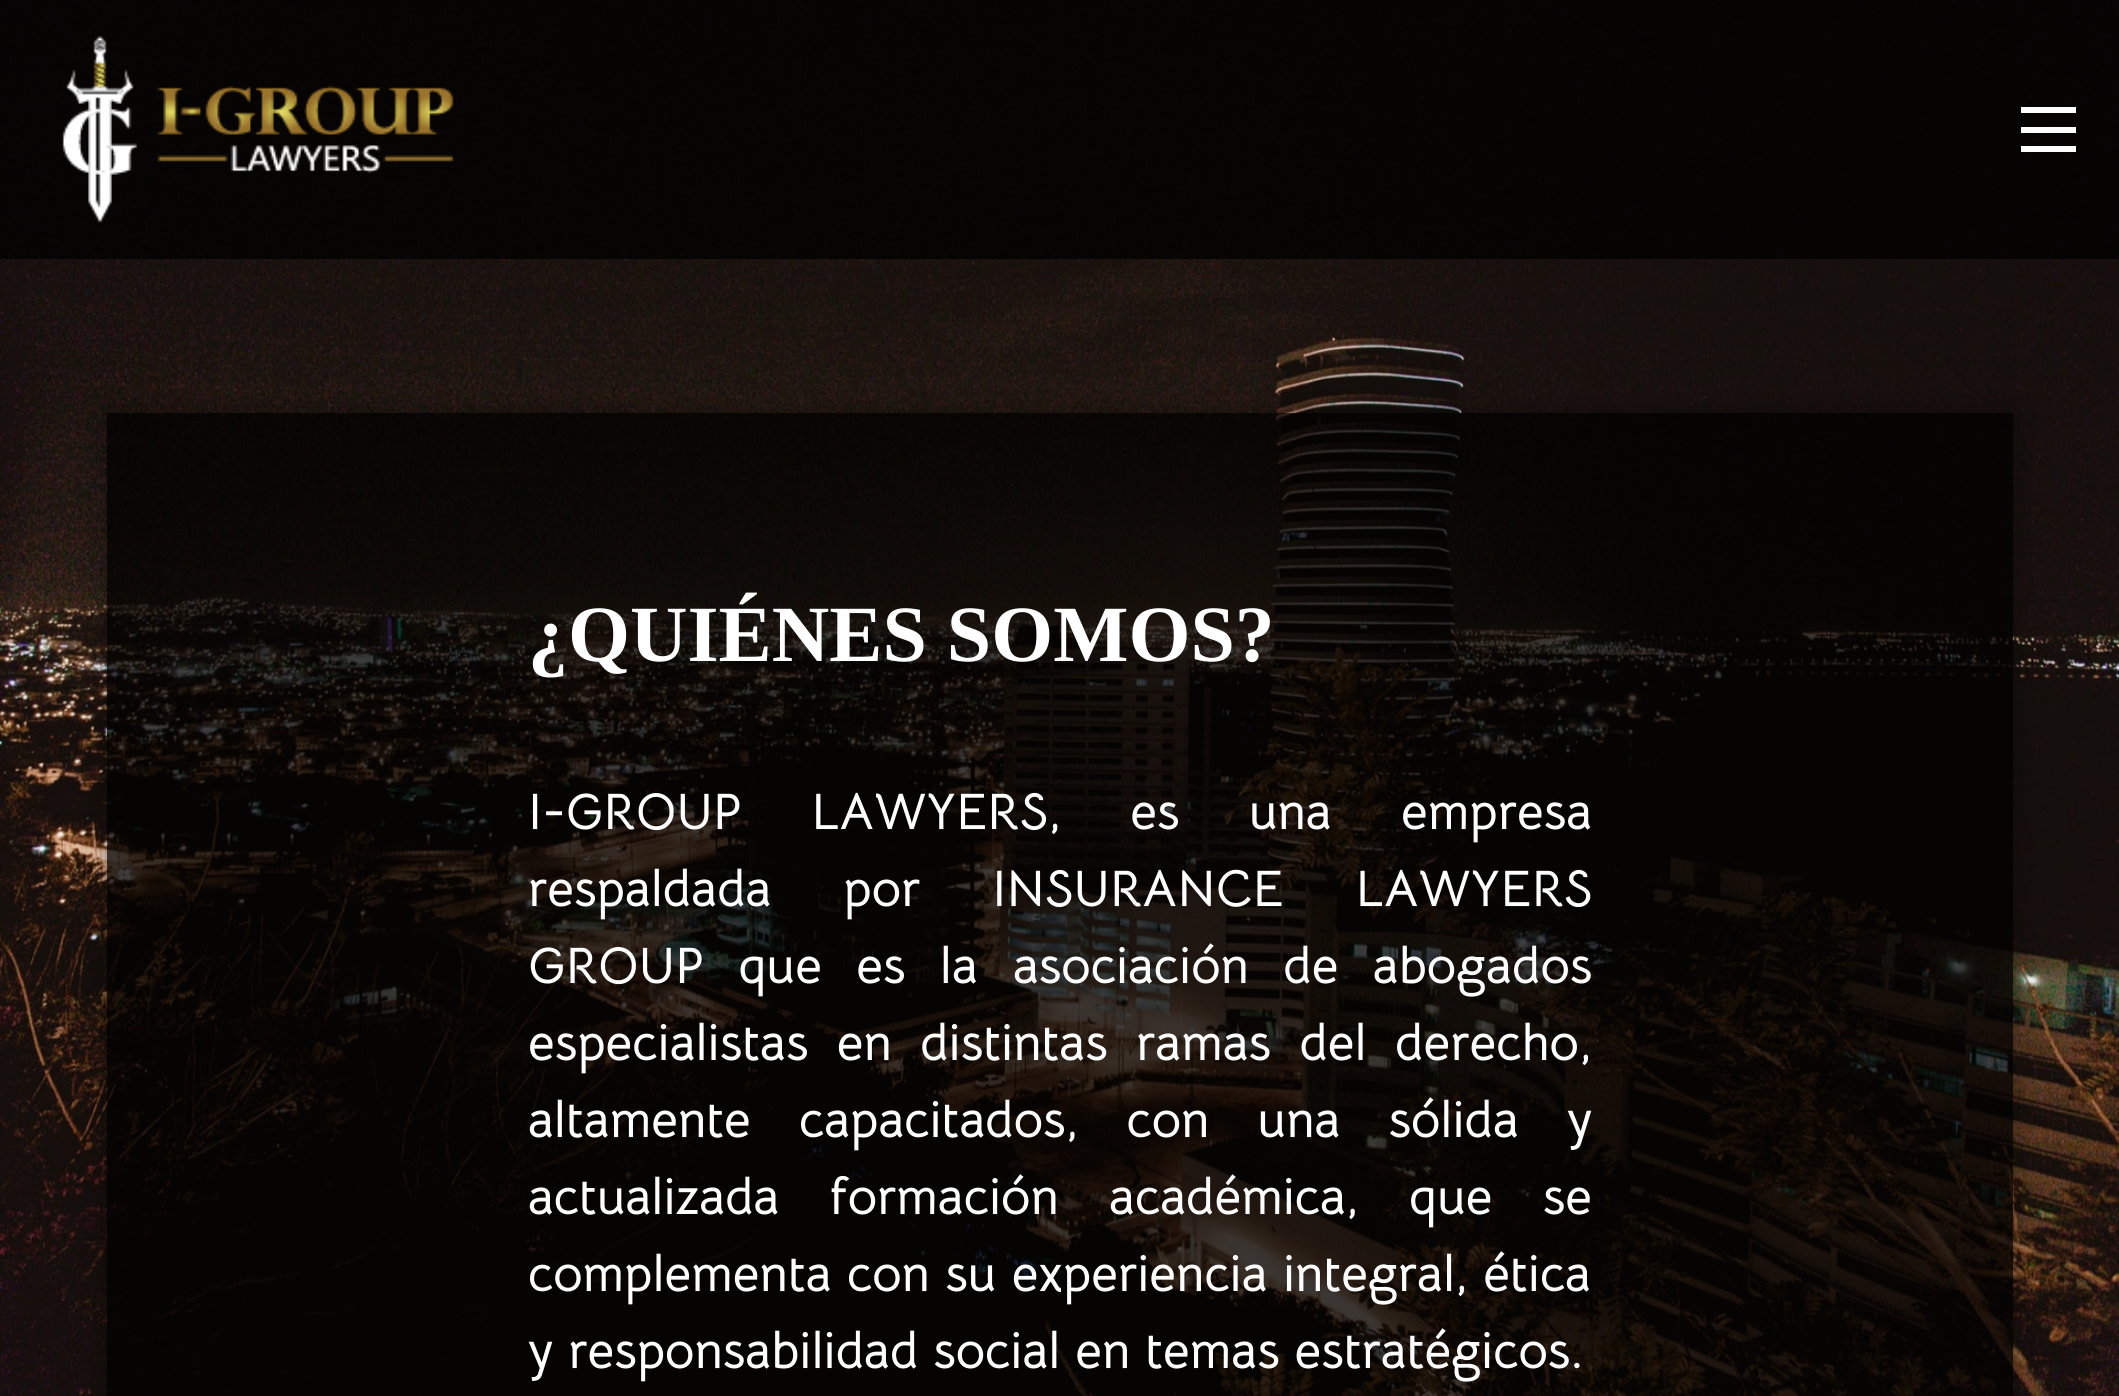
#include <cairo.h>
#include <math.h>
#include <stddef.h>


static void spaced_text(cairo_t *cr, double x, double y, const char *s, double letter, double word) {
    cairo_move_to(cr, x, y);
    while (*s) {
        char ch[5] = {0};
        int n = 0;
        do ch[n++] = *s++; while ((*s & 0xC0) == 0x80);
        cairo_show_text(cr, ch);
        cairo_rel_move_to(cr, letter + word * (*ch == ' '), 0);
    }
}

static void round_rect(cairo_t *cr, double x, double y, double w, double h, double r) {
    cairo_new_sub_path(cr);
    cairo_arc(cr, x + w - r, y + h - r, r, 0, M_PI / 2);
    cairo_arc(cr, x + r, y + h - r, r, M_PI / 2, M_PI);
    cairo_arc(cr, x + r, y + r, r, M_PI, 1.5 * M_PI);
    cairo_arc(cr, x + w - r, y + r, r, 1.5 * M_PI, 2 * M_PI);
    cairo_close_path(cr);
}

static void shadow(cairo_t *cr, double x, double y, double w, double h, double r, double blur, double alpha) {
    cairo_push_group_with_content(cr, CAIRO_CONTENT_ALPHA);
    cairo_set_operator(cr, CAIRO_OPERATOR_SOURCE);
    for (int i = 15; i >= -15 && fmin(w, h) + blur * i / 3 > 0; i -= 2) {
        double e = blur * i / 6;
        cairo_set_source_rgba(cr, 0, 0, 0, alpha * erfc((i - 1) / 8.5) / 2);
        round_rect(cr, x - e, y - e, w + 2 * e, h + 2 * e, fmax(0, fmin(r + e + blur * .6, fmin(w, h) / 2 + e)));
        cairo_fill(cr);
    }
    cairo_pattern_t *soft = cairo_pop_group(cr);
    cairo_mask(cr, soft);
    cairo_pattern_destroy(soft);
}

static void picture(cairo_t *cr, const char *path, double x, double y, double w, double h) {
    cairo_surface_t *image = cairo_image_surface_create_from_png(path);
    cairo_save(cr);
    cairo_set_source_surface(cr, image, x, y);
    cairo_rectangle(cr, x, y, w, h);
    cairo_fill(cr);
    cairo_restore(cr);
    cairo_surface_destroy(image);
}

int main(void) {
    cairo_surface_t *surface = cairo_image_surface_create(CAIRO_FORMAT_RGB24, 2119, 1396);
    cairo_t *cr = cairo_create(surface);
    cairo_font_options_t *options = cairo_font_options_create();
    cairo_font_options_set_hint_metrics(options, CAIRO_HINT_METRICS_OFF);
    cairo_font_options_set_hint_style(options, CAIRO_HINT_STYLE_NONE);
    cairo_set_font_options(cr, options);
    cairo_set_miter_limit(cr, 4);
    cairo_set_source_rgb(cr, 1, 1, 1);
    cairo_paint(cr);
    picture(cr, "img1.png", 0, 0, 2119, 1396);
    cairo_set_source_rgba(cr, 0, 0, 0, 0.75);
    cairo_rectangle(cr, 0, 0, 2119, 259);
    cairo_fill(cr);
    picture(cr, "img2.png", 62, 36, 392, 187);
    cairo_set_source_rgb(cr, 1, 1, 1);
    cairo_rectangle(cr, 2021, 127, 55, 6);
    cairo_fill(cr);
    cairo_rectangle(cr, 2021, 107, 55, 6);
    cairo_fill(cr);
    cairo_rectangle(cr, 2021, 146, 55, 6);
    cairo_fill(cr);
    cairo_save(cr);
    cairo_set_fill_rule(cr, CAIRO_FILL_RULE_EVEN_ODD);
    cairo_new_path(cr);
    cairo_move_to(cr, 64, 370);
    cairo_line_to(cr, 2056, 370);
    cairo_line_to(cr, 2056, 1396);
    cairo_line_to(cr, 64, 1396);
    cairo_close_path(cr);
    cairo_move_to(cr, 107, 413);
    cairo_line_to(cr, 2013, 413);
    cairo_line_to(cr, 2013, 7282);
    cairo_line_to(cr, 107, 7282);
    cairo_close_path(cr);
    cairo_clip(cr);
    cairo_set_source_rgb(cr, 0, 0, 0);
    shadow(cr, 107, 413, 1906, 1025, 0, 14, 0.4);
    cairo_restore(cr);
    cairo_set_source_rgba(cr, 0, 0, 0, 0.75);
    cairo_rectangle(cr, 107, 413, 1906, 983);
    cairo_fill(cr);
    cairo_select_font_face(cr, "Liberation Serif", CAIRO_FONT_SLANT_NORMAL, CAIRO_FONT_WEIGHT_BOLD);
    cairo_set_font_size(cr, 79.75);
    cairo_set_source_rgb(cr, 1, 1, 1);
    cairo_move_to(cr, 528, 661);
    cairo_show_text(cr, "¿QUIÉNES SOMOS?");
    cairo_select_font_face(cr, "Bellota Text", CAIRO_FONT_SLANT_NORMAL, CAIRO_FONT_WEIGHT_BOLD);
    cairo_set_font_size(cr, 51.3);
    spaced_text(cr, 528, 829, "I-GROUP LAWYERS, es una empresa", 0, 54.5);
    spaced_text(cr, 528, 906, "respaldada por INSURANCE LAWYERS", 0, 57);
    spaced_text(cr, 528, 983, "GROUP que es la", 0, 19.5);
    spaced_text(cr, 1013, 983, "asociación de abogados", 0, 19.5);
    spaced_text(cr, 528, 1060, "especialistas en distintas ramas del derecho,", 0, 13.5);
    spaced_text(cr, 528, 1137, "altamente capacitados, con una sólida y", 0, 33.25);
    spaced_text(cr, 528, 1214, "actualizada formación académica, que se", 0, 35.5);
    spaced_text(cr, 528, 1291, "complementa con su experiencia integral, ética", 0, 0.5);
    cairo_move_to(cr, 528, 1368);
    cairo_show_text(cr, "y responsabilidad social en temas estratégicos.");
    cairo_surface_write_to_png(surface, "page.png");
    cairo_font_options_destroy(options);
    cairo_destroy(cr);
    cairo_surface_destroy(surface);
    return 0;
}
